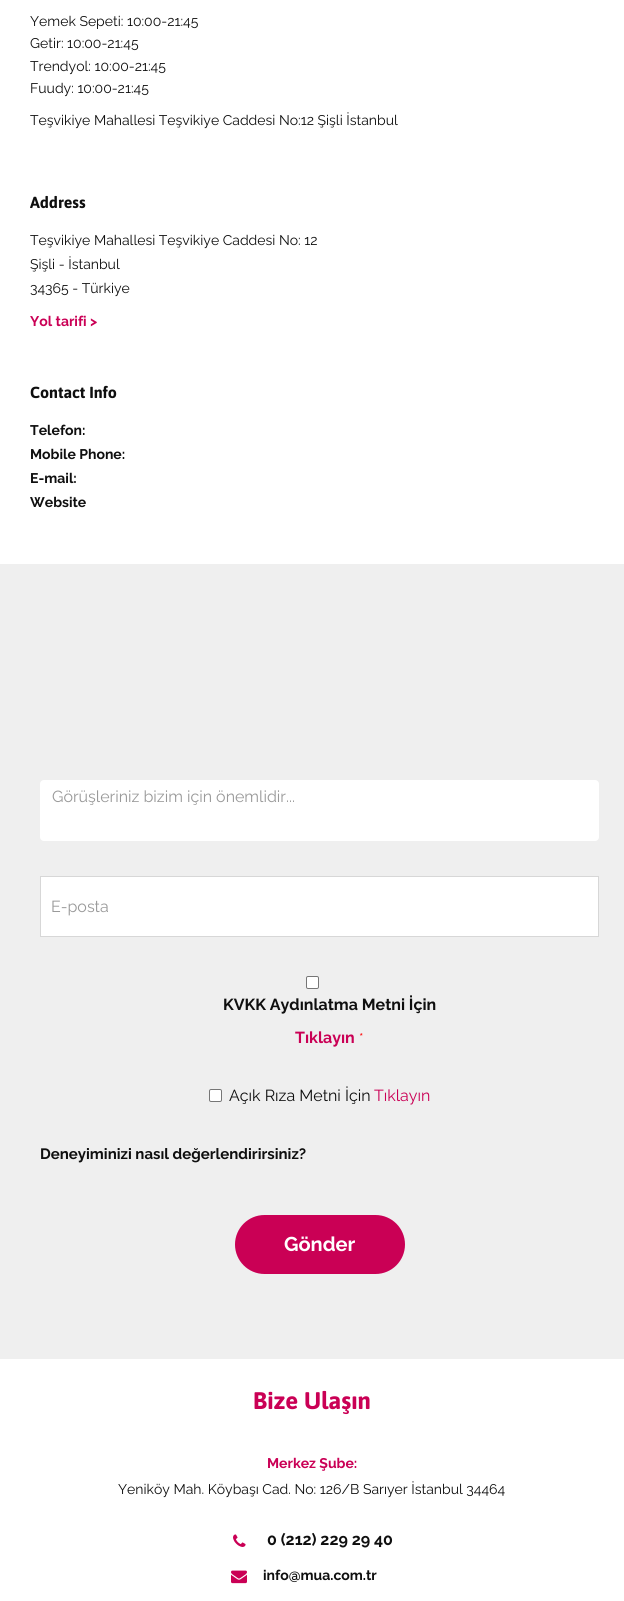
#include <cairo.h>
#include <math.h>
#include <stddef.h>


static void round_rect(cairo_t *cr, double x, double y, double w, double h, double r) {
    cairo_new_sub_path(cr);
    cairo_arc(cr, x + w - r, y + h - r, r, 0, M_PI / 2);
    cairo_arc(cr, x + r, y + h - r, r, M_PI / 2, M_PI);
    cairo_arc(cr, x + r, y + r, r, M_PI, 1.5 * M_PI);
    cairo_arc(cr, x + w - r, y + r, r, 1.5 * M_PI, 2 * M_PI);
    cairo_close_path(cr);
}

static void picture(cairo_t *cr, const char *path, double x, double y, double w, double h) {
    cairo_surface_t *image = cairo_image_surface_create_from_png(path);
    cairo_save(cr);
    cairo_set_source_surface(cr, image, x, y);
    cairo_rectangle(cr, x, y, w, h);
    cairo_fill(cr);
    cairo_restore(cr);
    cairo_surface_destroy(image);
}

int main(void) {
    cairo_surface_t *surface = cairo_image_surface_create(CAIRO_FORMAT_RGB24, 624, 1601);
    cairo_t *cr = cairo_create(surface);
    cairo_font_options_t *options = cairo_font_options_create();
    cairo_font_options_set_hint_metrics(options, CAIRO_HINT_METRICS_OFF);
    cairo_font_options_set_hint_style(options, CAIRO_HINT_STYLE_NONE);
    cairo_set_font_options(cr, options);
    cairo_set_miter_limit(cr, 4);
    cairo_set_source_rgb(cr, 1, 1, 1);
    cairo_paint(cr);
    cairo_select_font_face(cr, "Raleway", CAIRO_FONT_SLANT_NORMAL, CAIRO_FONT_WEIGHT_NORMAL);
    cairo_set_font_size(cr, 14);
    cairo_set_source_rgb(cr, 0.059, 0.059, 0.059);
    cairo_move_to(cr, 30, 26);
    cairo_show_text(cr, "Yemek Sepeti: 10:00-21:45");
    cairo_move_to(cr, 30, 48);
    cairo_show_text(cr, "Getir: 10:00-21:45");
    cairo_move_to(cr, 30, 71);
    cairo_show_text(cr, "Trendyol: 10:00-21:45");
    cairo_move_to(cr, 30, 93);
    cairo_show_text(cr, "Fuudy: 10:00-21:45");
    cairo_move_to(cr, 30, 125);
    cairo_show_text(cr, "Teşvikiye Mahallesi Teşvikiye Caddesi No:12 Şişli İstanbul");
    cairo_select_font_face(cr, "Asap", CAIRO_FONT_SLANT_NORMAL, CAIRO_FONT_WEIGHT_BOLD);
    cairo_set_font_size(cr, 16);
    cairo_move_to(cr, 30, 208);
    cairo_show_text(cr, "Address");
    cairo_select_font_face(cr, "Raleway", CAIRO_FONT_SLANT_NORMAL, CAIRO_FONT_WEIGHT_NORMAL);
    cairo_set_font_size(cr, 14);
    cairo_move_to(cr, 30, 245);
    cairo_show_text(cr, "Teşvikiye Mahallesi Teşvikiye Caddesi No: 12");
    cairo_move_to(cr, 30, 269);
    cairo_show_text(cr, "Şişli - İstanbul");
    cairo_move_to(cr, 30, 293);
    cairo_show_text(cr, "34365 - Türkiye");
    cairo_select_font_face(cr, "Raleway", CAIRO_FONT_SLANT_NORMAL, CAIRO_FONT_WEIGHT_BOLD);
    cairo_set_source_rgb(cr, 0.792, 0, 0.333);
    cairo_move_to(cr, 30, 326);
    cairo_show_text(cr, "Yol tarifi >");
    cairo_select_font_face(cr, "Asap", CAIRO_FONT_SLANT_NORMAL, CAIRO_FONT_WEIGHT_BOLD);
    cairo_set_font_size(cr, 16);
    cairo_set_source_rgb(cr, 0.059, 0.059, 0.059);
    cairo_move_to(cr, 30, 398);
    cairo_show_text(cr, "Contact Info");
    cairo_select_font_face(cr, "Raleway", CAIRO_FONT_SLANT_NORMAL, CAIRO_FONT_WEIGHT_BOLD);
    cairo_set_font_size(cr, 14);
    cairo_move_to(cr, 30, 435);
    cairo_show_text(cr, "Telefon:");
    cairo_move_to(cr, 30, 459);
    cairo_show_text(cr, "Mobile Phone:");
    cairo_move_to(cr, 30, 483);
    cairo_show_text(cr, "E-mail:");
    cairo_move_to(cr, 30, 507);
    cairo_show_text(cr, "Website");
    cairo_set_source_rgb(cr, 0.937, 0.937, 0.937);
    cairo_rectangle(cr, 0, 564, 624, 795);
    cairo_fill(cr);
    cairo_set_source_rgb(cr, 1, 1, 1);
    round_rect(cr, 40, 780, 559, 61, 4);
    cairo_fill(cr);
    cairo_select_font_face(cr, "Raleway", CAIRO_FONT_SLANT_NORMAL, CAIRO_FONT_WEIGHT_NORMAL);
    cairo_set_font_size(cr, 16);
    cairo_set_source_rgb(cr, 0.6, 0.6, 0.6);
    cairo_move_to(cr, 52, 802);
    cairo_show_text(cr, "Görüşleriniz bizim için önemlidir...");
    cairo_set_source_rgb(cr, 1, 1, 1);
    cairo_rectangle(cr, 40.5, 876.5, 558, 60);
    cairo_fill_preserve(cr);
    cairo_set_source_rgb(cr, 0.843, 0.843, 0.843);
    cairo_set_line_width(cr, 1);
    cairo_stroke(cr);
    cairo_set_source_rgb(cr, 0.6, 0.6, 0.6);
    cairo_move_to(cr, 51, 912);
    cairo_show_text(cr, "E-posta");
    cairo_set_source_rgb(cr, 1, 1, 1);
    round_rect(cr, 306.5, 976.5, 12, 12, 1.5);
    cairo_fill_preserve(cr);
    cairo_set_source_rgb(cr, 0.463, 0.463, 0.463);
    cairo_stroke(cr);
    cairo_select_font_face(cr, "Raleway", CAIRO_FONT_SLANT_NORMAL, CAIRO_FONT_WEIGHT_BOLD);
    cairo_set_source_rgb(cr, 0.059, 0.059, 0.059);
    cairo_move_to(cr, 223, 1010);
    cairo_show_text(cr, "KVKK Aydınlatma Metni İçin");
    cairo_set_source_rgb(cr, 0.792, 0, 0.333);
    cairo_move_to(cr, 295, 1043);
    cairo_show_text(cr, "Tıklayın");
    cairo_select_font_face(cr, "Raleway", CAIRO_FONT_SLANT_NORMAL, CAIRO_FONT_WEIGHT_NORMAL);
    cairo_set_font_size(cr, 14);
    cairo_set_source_rgb(cr, 1, 0, 0);
    cairo_move_to(cr, 359, 1043);
    cairo_show_text(cr, "*");
    cairo_set_source_rgb(cr, 1, 1, 1);
    round_rect(cr, 209.5, 1089.5, 12, 12, 1.5);
    cairo_fill_preserve(cr);
    cairo_set_source_rgb(cr, 0.463, 0.463, 0.463);
    cairo_stroke(cr);
    cairo_set_font_size(cr, 16);
    cairo_set_source_rgb(cr, 0.059, 0.059, 0.059);
    cairo_move_to(cr, 229, 1101);
    cairo_show_text(cr, "Açık Rıza Metni İçin");
    cairo_set_source_rgb(cr, 0.792, 0, 0.333);
    cairo_move_to(cr, 374, 1101);
    cairo_show_text(cr, "Tıklayın");
    cairo_select_font_face(cr, "Raleway", CAIRO_FONT_SLANT_NORMAL, CAIRO_FONT_WEIGHT_BOLD);
    cairo_set_font_size(cr, 15);
    cairo_set_source_rgb(cr, 0.059, 0.059, 0.059);
    cairo_move_to(cr, 40, 1159);
    cairo_show_text(cr, "Deneyiminizi nasıl değerlendirirsiniz?");
    cairo_set_source_rgb(cr, 0.792, 0, 0.333);
    round_rect(cr, 235, 1215, 170, 59, 29.5);
    cairo_fill(cr);
    cairo_set_font_size(cr, 20);
    cairo_set_source_rgb(cr, 1, 1, 1);
    cairo_move_to(cr, 284, 1251);
    cairo_show_text(cr, "Gönder");
    cairo_select_font_face(cr, "Asap", CAIRO_FONT_SLANT_NORMAL, CAIRO_FONT_WEIGHT_BOLD);
    cairo_set_font_size(cr, 24);
    cairo_set_source_rgb(cr, 0.792, 0, 0.333);
    cairo_move_to(cr, 253, 1409);
    cairo_show_text(cr, "Bize Ulaşın");
    cairo_select_font_face(cr, "Raleway", CAIRO_FONT_SLANT_NORMAL, CAIRO_FONT_WEIGHT_BOLD);
    cairo_set_font_size(cr, 14);
    cairo_move_to(cr, 267, 1468);
    cairo_show_text(cr, "Merkez Şube:");
    cairo_select_font_face(cr, "Raleway", CAIRO_FONT_SLANT_NORMAL, CAIRO_FONT_WEIGHT_NORMAL);
    cairo_set_source_rgb(cr, 0.059, 0.059, 0.059);
    cairo_move_to(cr, 118, 1494);
    cairo_show_text(cr, "Yeniköy Mah. Köybaşı Cad. No: 126/B Sarıyer İstanbul 34464");
    picture(cr, "img1.png", 233, 1534, 13, 13);
    cairo_select_font_face(cr, "Raleway", CAIRO_FONT_SLANT_NORMAL, CAIRO_FONT_WEIGHT_BOLD);
    cairo_set_font_size(cr, 16);
    cairo_move_to(cr, 267, 1545);
    cairo_show_text(cr, "0 (212) 229 29 40");
    picture(cr, "img2.png", 231, 1570, 16, 14);
    cairo_set_font_size(cr, 14);
    cairo_move_to(cr, 263, 1580);
    cairo_show_text(cr, "info@mua.com.tr");
    cairo_surface_write_to_png(surface, "page.png");
    cairo_font_options_destroy(options);
    cairo_destroy(cr);
    cairo_surface_destroy(surface);
    return 0;
}
